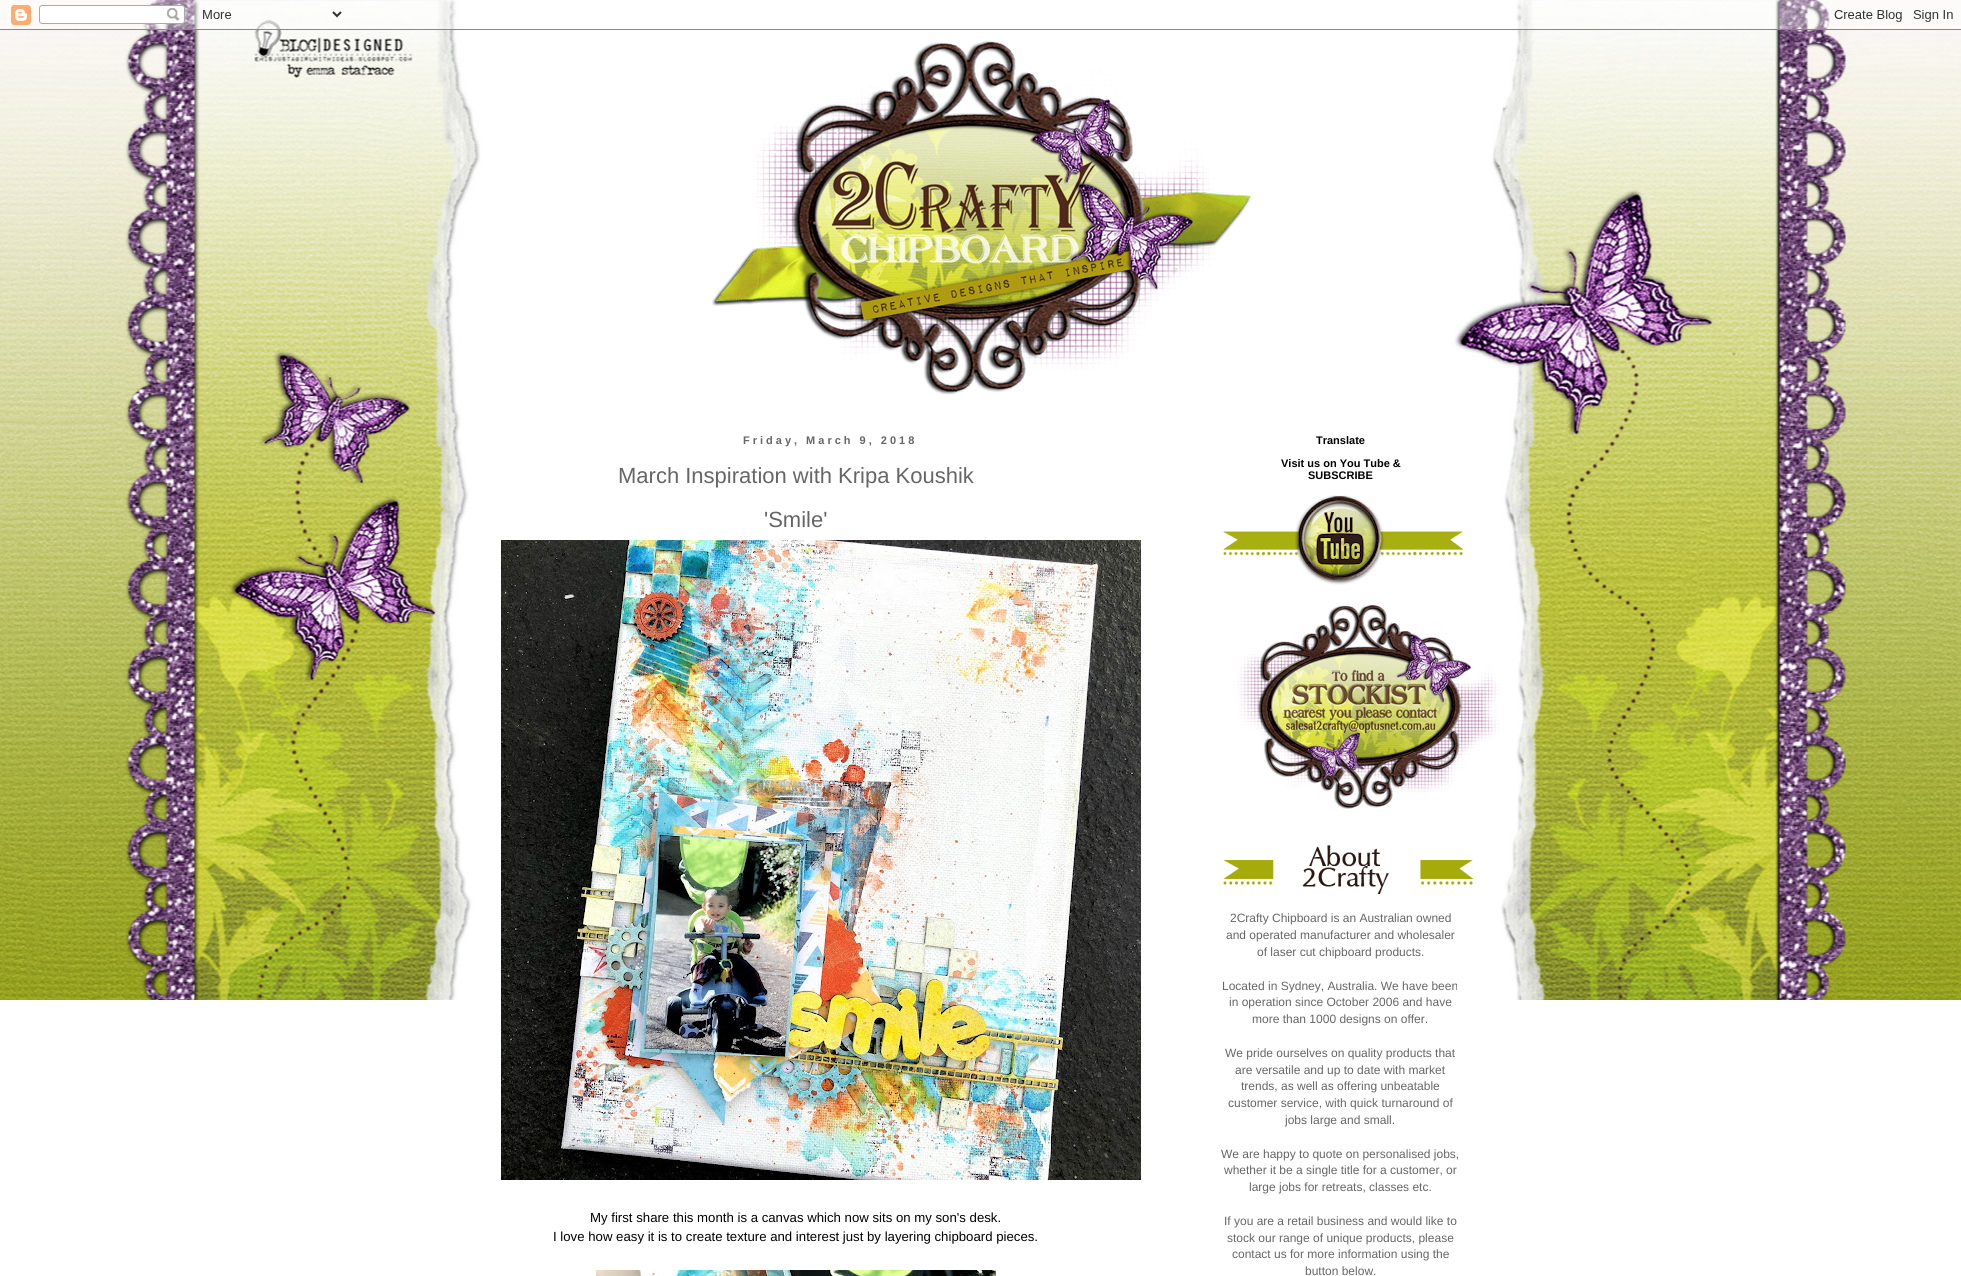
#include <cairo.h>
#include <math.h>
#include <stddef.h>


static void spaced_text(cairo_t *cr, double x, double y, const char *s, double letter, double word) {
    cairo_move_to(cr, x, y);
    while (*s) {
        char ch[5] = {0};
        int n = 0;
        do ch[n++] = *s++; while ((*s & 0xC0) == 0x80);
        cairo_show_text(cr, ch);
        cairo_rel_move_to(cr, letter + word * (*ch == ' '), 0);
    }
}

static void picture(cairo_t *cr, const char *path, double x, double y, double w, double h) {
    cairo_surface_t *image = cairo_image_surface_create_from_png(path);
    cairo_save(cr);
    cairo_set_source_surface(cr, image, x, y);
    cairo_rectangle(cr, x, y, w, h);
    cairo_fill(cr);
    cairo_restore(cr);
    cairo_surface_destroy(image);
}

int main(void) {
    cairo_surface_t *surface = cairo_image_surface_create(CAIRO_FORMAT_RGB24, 1961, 1276);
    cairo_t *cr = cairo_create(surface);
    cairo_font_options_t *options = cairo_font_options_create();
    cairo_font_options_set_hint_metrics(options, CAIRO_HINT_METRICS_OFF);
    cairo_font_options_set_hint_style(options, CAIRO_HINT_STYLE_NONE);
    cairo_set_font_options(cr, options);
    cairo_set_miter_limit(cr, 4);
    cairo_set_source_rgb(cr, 1, 1, 1);
    cairo_paint(cr);
    picture(cr, "img1.png", 0, 0, 1961, 1000);
    picture(cr, "img2.png", 0, 0, 1961, 30);
    picture(cr, "img3.png", 712, 40, 539, 355);
    cairo_select_font_face(cr, "Liberation Sans", CAIRO_FONT_SLANT_NORMAL, CAIRO_FONT_WEIGHT_BOLD);
    cairo_set_font_size(cr, 11);
    cairo_set_source_rgb(cr, 0.4, 0.4, 0.4);
    spaced_text(cr, 743, 444, "Friday, March 9, 2018", 3, 0);
    cairo_select_font_face(cr, "Liberation Sans", CAIRO_FONT_SLANT_NORMAL, CAIRO_FONT_WEIGHT_NORMAL);
    cairo_set_font_size(cr, 22);
    cairo_move_to(cr, 618, 483);
    cairo_show_text(cr, "March Inspiration with Kripa Koushik");
    cairo_move_to(cr, 764, 527);
    cairo_show_text(cr, "'Smile'");
    picture(cr, "img4.png", 501, 540, 640, 640);
    cairo_set_font_size(cr, 13.2);
    cairo_set_source_rgb(cr, 0, 0, 0);
    cairo_move_to(cr, 590, 1222);
    cairo_show_text(cr, "My first share this month is a canvas which now sits on my son's desk.");
    cairo_move_to(cr, 553, 1241);
    cairo_show_text(cr, "I love how easy it is to create texture and interest just by layering chipboard pieces.");
    picture(cr, "img5.png", 596, 1270, 400, 6);
    cairo_select_font_face(cr, "Liberation Sans", CAIRO_FONT_SLANT_NORMAL, CAIRO_FONT_WEIGHT_BOLD);
    cairo_set_font_size(cr, 11);
    cairo_move_to(cr, 1316, 444);
    cairo_show_text(cr, "Translate");
    cairo_move_to(cr, 1281, 467);
    cairo_show_text(cr, "Visit us on You Tube &");
    cairo_move_to(cr, 1308, 479);
    cairo_show_text(cr, "SUBSCRIBE");
    picture(cr, "img6.png", 1223, 495, 240, 90);
    picture(cr, "img7.png", 1237, 604, 263, 205);
    picture(cr, "img8.png", 1223, 845, 250, 49);
    cairo_select_font_face(cr, "Liberation Sans", CAIRO_FONT_SLANT_NORMAL, CAIRO_FONT_WEIGHT_NORMAL);
    cairo_set_font_size(cr, 12);
    cairo_set_source_rgb(cr, 0.4, 0.4, 0.4);
    cairo_move_to(cr, 1230, 922);
    cairo_show_text(cr, "2Crafty Chipboard is an Australian owned");
    cairo_move_to(cr, 1226, 939);
    cairo_show_text(cr, "and operated manufacturer and wholesaler");
    cairo_move_to(cr, 1257, 956);
    cairo_show_text(cr, "of laser cut chipboard products.");
    cairo_move_to(cr, 1222, 990);
    cairo_show_text(cr, "Located in Sydney, Australia. We have been");
    cairo_move_to(cr, 1229, 1006);
    cairo_show_text(cr, "in operation since October 2006 and have");
    cairo_move_to(cr, 1252, 1023);
    cairo_show_text(cr, "more than 1000 designs on offer.");
    cairo_move_to(cr, 1225, 1057);
    cairo_show_text(cr, "We pride ourselves on quality products that");
    cairo_move_to(cr, 1235, 1074);
    cairo_show_text(cr, "are versatile and up to date with market");
    cairo_move_to(cr, 1241, 1090);
    cairo_show_text(cr, "trends, as well as offering unbeatable");
    cairo_move_to(cr, 1228, 1107);
    cairo_show_text(cr, "customer service, with quick turnaround of");
    cairo_move_to(cr, 1285, 1124);
    cairo_show_text(cr, "jobs large and small.");
    cairo_move_to(cr, 1221, 1158);
    cairo_show_text(cr, "We are happy to quote on personalised jobs,");
    cairo_move_to(cr, 1224, 1174);
    cairo_show_text(cr, "whether it be a single title for a customer, or");
    cairo_move_to(cr, 1249, 1191);
    cairo_show_text(cr, "large jobs for retreats, classes etc.");
    cairo_move_to(cr, 1224, 1225);
    cairo_show_text(cr, "If you are a retail business and would like to");
    cairo_move_to(cr, 1227, 1242);
    cairo_show_text(cr, "stock our range of unique products, please");
    cairo_move_to(cr, 1232, 1258);
    cairo_show_text(cr, "contact us for more information using the");
    cairo_move_to(cr, 1305, 1275);
    cairo_show_text(cr, "button below.");
    cairo_surface_write_to_png(surface, "page.png");
    cairo_font_options_destroy(options);
    cairo_destroy(cr);
    cairo_surface_destroy(surface);
    return 0;
}
